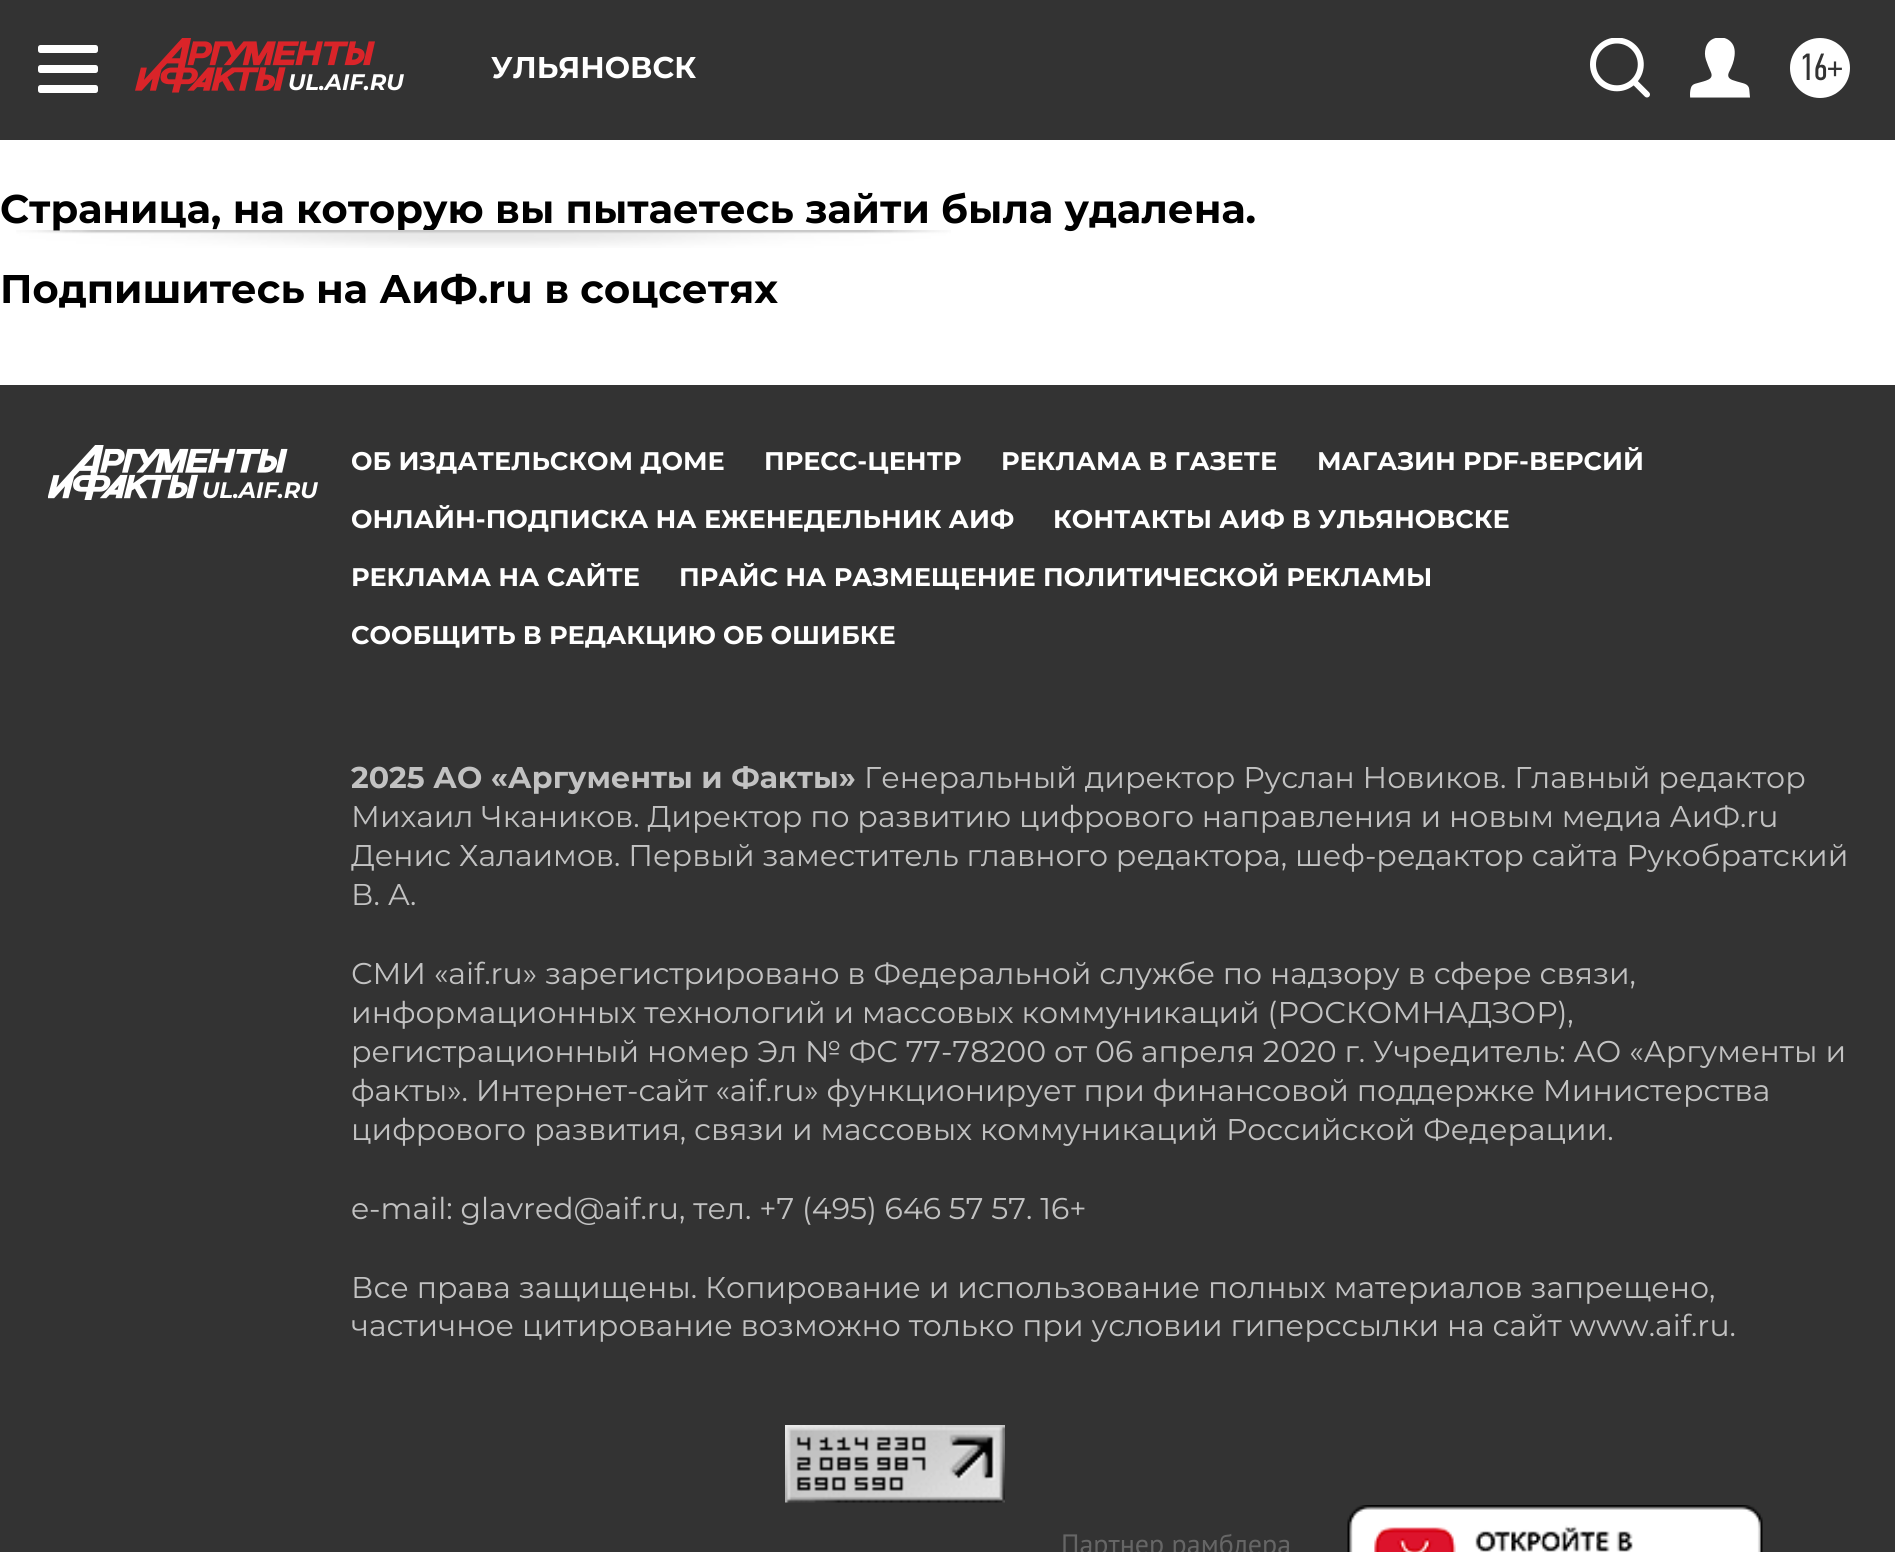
#include <cairo.h>
#include <math.h>
#include <stddef.h>


static void round_rect(cairo_t *cr, double x, double y, double w, double h, double r) {
    cairo_new_sub_path(cr);
    cairo_arc(cr, x + w - r, y + h - r, r, 0, M_PI / 2);
    cairo_arc(cr, x + r, y + h - r, r, M_PI / 2, M_PI);
    cairo_arc(cr, x + r, y + r, r, M_PI, 1.5 * M_PI);
    cairo_arc(cr, x + w - r, y + r, r, 1.5 * M_PI, 2 * M_PI);
    cairo_close_path(cr);
}

static void picture(cairo_t *cr, const char *path, double x, double y, double w, double h) {
    cairo_surface_t *image = cairo_image_surface_create_from_png(path);
    cairo_save(cr);
    cairo_set_source_surface(cr, image, x, y);
    cairo_rectangle(cr, x, y, w, h);
    cairo_fill(cr);
    cairo_restore(cr);
    cairo_surface_destroy(image);
}

int main(void) {
    cairo_surface_t *surface = cairo_image_surface_create(CAIRO_FORMAT_RGB24, 1895, 1552);
    cairo_t *cr = cairo_create(surface);
    cairo_font_options_t *options = cairo_font_options_create();
    cairo_font_options_set_hint_metrics(options, CAIRO_HINT_METRICS_OFF);
    cairo_font_options_set_hint_style(options, CAIRO_HINT_STYLE_NONE);
    cairo_set_font_options(cr, options);
    cairo_set_miter_limit(cr, 4);
    cairo_set_source_rgb(cr, 1, 1, 1);
    cairo_paint(cr);
    cairo_set_source_rgb(cr, 0.2, 0.2, 0.2);
    cairo_rectangle(cr, 0, 0, 1895, 140);
    cairo_fill(cr);
    cairo_set_source_rgb(cr, 1, 1, 1);
    round_rect(cr, 38, 45, 60, 8, 2.5);
    cairo_fill(cr);
    round_rect(cr, 38, 65, 60, 8, 2.5);
    cairo_fill(cr);
    round_rect(cr, 38, 85, 60, 8, 2.5);
    cairo_fill(cr);
    cairo_select_font_face(cr, "Montserrat", CAIRO_FONT_SLANT_NORMAL, CAIRO_FONT_WEIGHT_BOLD);
    cairo_set_font_size(cr, 30);
    cairo_move_to(cr, 491, 78);
    cairo_show_text(cr, "УЛЬЯНОВСК");
    picture(cr, "img1.png", 1590, 38, 60, 60);
    picture(cr, "img2.png", 1690, 38, 60, 60);
    cairo_arc(cr, 1820, 68, 30, 0, 2 * M_PI);
    cairo_fill(cr);
    cairo_select_font_face(cr, "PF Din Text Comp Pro", CAIRO_FONT_SLANT_NORMAL, CAIRO_FONT_WEIGHT_NORMAL);
    cairo_set_font_size(cr, 38);
    cairo_set_source_rgb(cr, 0.2, 0.2, 0.2);
    cairo_move_to(cr, 1799, 80);
    cairo_show_text(cr, "16+");
    picture(cr, "img3.png", 135, 38, 240, 55);
    cairo_select_font_face(cr, "Montserrat", CAIRO_FONT_SLANT_ITALIC, CAIRO_FONT_WEIGHT_BOLD);
    cairo_set_font_size(cr, 22.5);
    cairo_set_source_rgb(cr, 1, 1, 1);
    cairo_move_to(cr, 288, 90);
    cairo_show_text(cr, "UL.AIF.RU");
    cairo_select_font_face(cr, "Montserrat", CAIRO_FONT_SLANT_NORMAL, CAIRO_FONT_WEIGHT_BOLD);
    cairo_set_font_size(cr, 40);
    cairo_set_source_rgb(cr, 0, 0, 0);
    cairo_move_to(cr, 0, 223);
    cairo_show_text(cr, "Страница, на которую вы пытаетесь зайти была удалена.");
    picture(cr, "img4.png", 16, 230, 935, 18);
    cairo_move_to(cr, 0, 303);
    cairo_show_text(cr, "Подпишитесь на АиФ.ru в соцсетях");
    cairo_set_source_rgb(cr, 0.2, 0.2, 0.2);
    cairo_rectangle(cr, 0, 385, 1895, 1167);
    cairo_fill(cr);
    picture(cr, "img5.png", 48, 445, 240, 55);
    cairo_select_font_face(cr, "Montserrat", CAIRO_FONT_SLANT_ITALIC, CAIRO_FONT_WEIGHT_BOLD);
    cairo_set_font_size(cr, 22.5);
    cairo_set_source_rgb(cr, 1, 1, 1);
    cairo_move_to(cr, 202, 498);
    cairo_show_text(cr, "UL.AIF.RU");
    cairo_select_font_face(cr, "Montserrat", CAIRO_FONT_SLANT_NORMAL, CAIRO_FONT_WEIGHT_BOLD);
    cairo_set_font_size(cr, 25.5);
    cairo_move_to(cr, 351, 470);
    cairo_show_text(cr, "ОБ ИЗДАТЕЛЬСКОМ ДОМЕ");
    cairo_move_to(cr, 764, 470);
    cairo_show_text(cr, "ПРЕСС-ЦЕНТР");
    cairo_move_to(cr, 1001, 470);
    cairo_show_text(cr, "РЕКЛАМА В ГАЗЕТЕ");
    cairo_move_to(cr, 1317, 470);
    cairo_show_text(cr, "МАГАЗИН PDF-ВЕРСИЙ");
    cairo_move_to(cr, 351, 528);
    cairo_show_text(cr, "ОНЛАЙН-ПОДПИСКА НА ЕЖЕНЕДЕЛЬНИК АИФ");
    cairo_move_to(cr, 1053, 528);
    cairo_show_text(cr, "КОНТАКТЫ АИФ В УЛЬЯНОВСКЕ");
    cairo_move_to(cr, 351, 586);
    cairo_show_text(cr, "РЕКЛАМА НА САЙТЕ");
    cairo_move_to(cr, 679, 586);
    cairo_show_text(cr, "ПРАЙС НА РАЗМЕЩЕНИЕ ПОЛИТИЧЕСКОЙ РЕКЛАМЫ");
    cairo_move_to(cr, 351, 644);
    cairo_show_text(cr, "СООБЩИТЬ В РЕДАКЦИЮ ОБ ОШИБКЕ");
    cairo_set_font_size(cr, 30);
    cairo_set_source_rgb(cr, 0.761, 0.761, 0.761);
    cairo_move_to(cr, 351, 788);
    cairo_show_text(cr, "2025 АО «Аргументы и Факты»");
    cairo_select_font_face(cr, "Montserrat", CAIRO_FONT_SLANT_NORMAL, CAIRO_FONT_WEIGHT_NORMAL);
    cairo_move_to(cr, 864, 788);
    cairo_show_text(cr, "Генеральный директор Руслан Новиков. Главный редактор");
    cairo_move_to(cr, 351, 827);
    cairo_show_text(cr, "Михаил Чкаников. Директор по развитию цифрового направления и новым медиа АиФ.ru");
    cairo_move_to(cr, 351, 866);
    cairo_show_text(cr, "Денис Халаимов. Первый заместитель главного редактора, шеф-редактор сайта Рукобратский");
    cairo_move_to(cr, 351, 905);
    cairo_show_text(cr, "В. А.");
    cairo_move_to(cr, 351, 984);
    cairo_show_text(cr, "СМИ «aif.ru» зарегистрировано в Федеральной службе по надзору в сфере связи,");
    cairo_move_to(cr, 351, 1023);
    cairo_show_text(cr, "информационных технологий и массовых коммуникаций (РОСКОМНАДЗОР),");
    cairo_move_to(cr, 351, 1062);
    cairo_show_text(cr, "регистрационный номер Эл № ФС 77-78200 от 06 апреля 2020 г. Учредитель: АО «Аргументы и");
    cairo_move_to(cr, 351, 1101);
    cairo_show_text(cr, "факты». Интернет-сайт «aif.ru» функционирует при финансовой поддержке Министерства");
    cairo_move_to(cr, 351, 1140);
    cairo_show_text(cr, "цифрового развития, связи и массовых коммуникаций Российской Федерации.");
    cairo_move_to(cr, 351, 1219);
    cairo_show_text(cr, "e-mail: glavred@aif.ru, тел. +7 (495) 646 57 57. 16+");
    cairo_move_to(cr, 351, 1298);
    cairo_show_text(cr, "Все права защищены. Копирование и использование полных материалов запрещено,");
    cairo_move_to(cr, 351, 1336);
    cairo_show_text(cr, "частичное цитирование возможно только при условии гиперссылки на сайт www.aif.ru.");
    picture(cr, "img6.png", 785, 1425, 220, 78);
    cairo_select_font_face(cr, "PT Sans", CAIRO_FONT_SLANT_NORMAL, CAIRO_FONT_WEIGHT_NORMAL);
    cairo_set_font_size(cr, 28);
    cairo_set_source_rgb(cr, 0.4, 0.4, 0.4);
    cairo_move_to(cr, 1061, 1554);
    cairo_show_text(cr, "Партнер рамблера");
    picture(cr, "img7.png", 1347, 1505, 416, 47);
    cairo_surface_write_to_png(surface, "page.png");
    cairo_font_options_destroy(options);
    cairo_destroy(cr);
    cairo_surface_destroy(surface);
    return 0;
}
